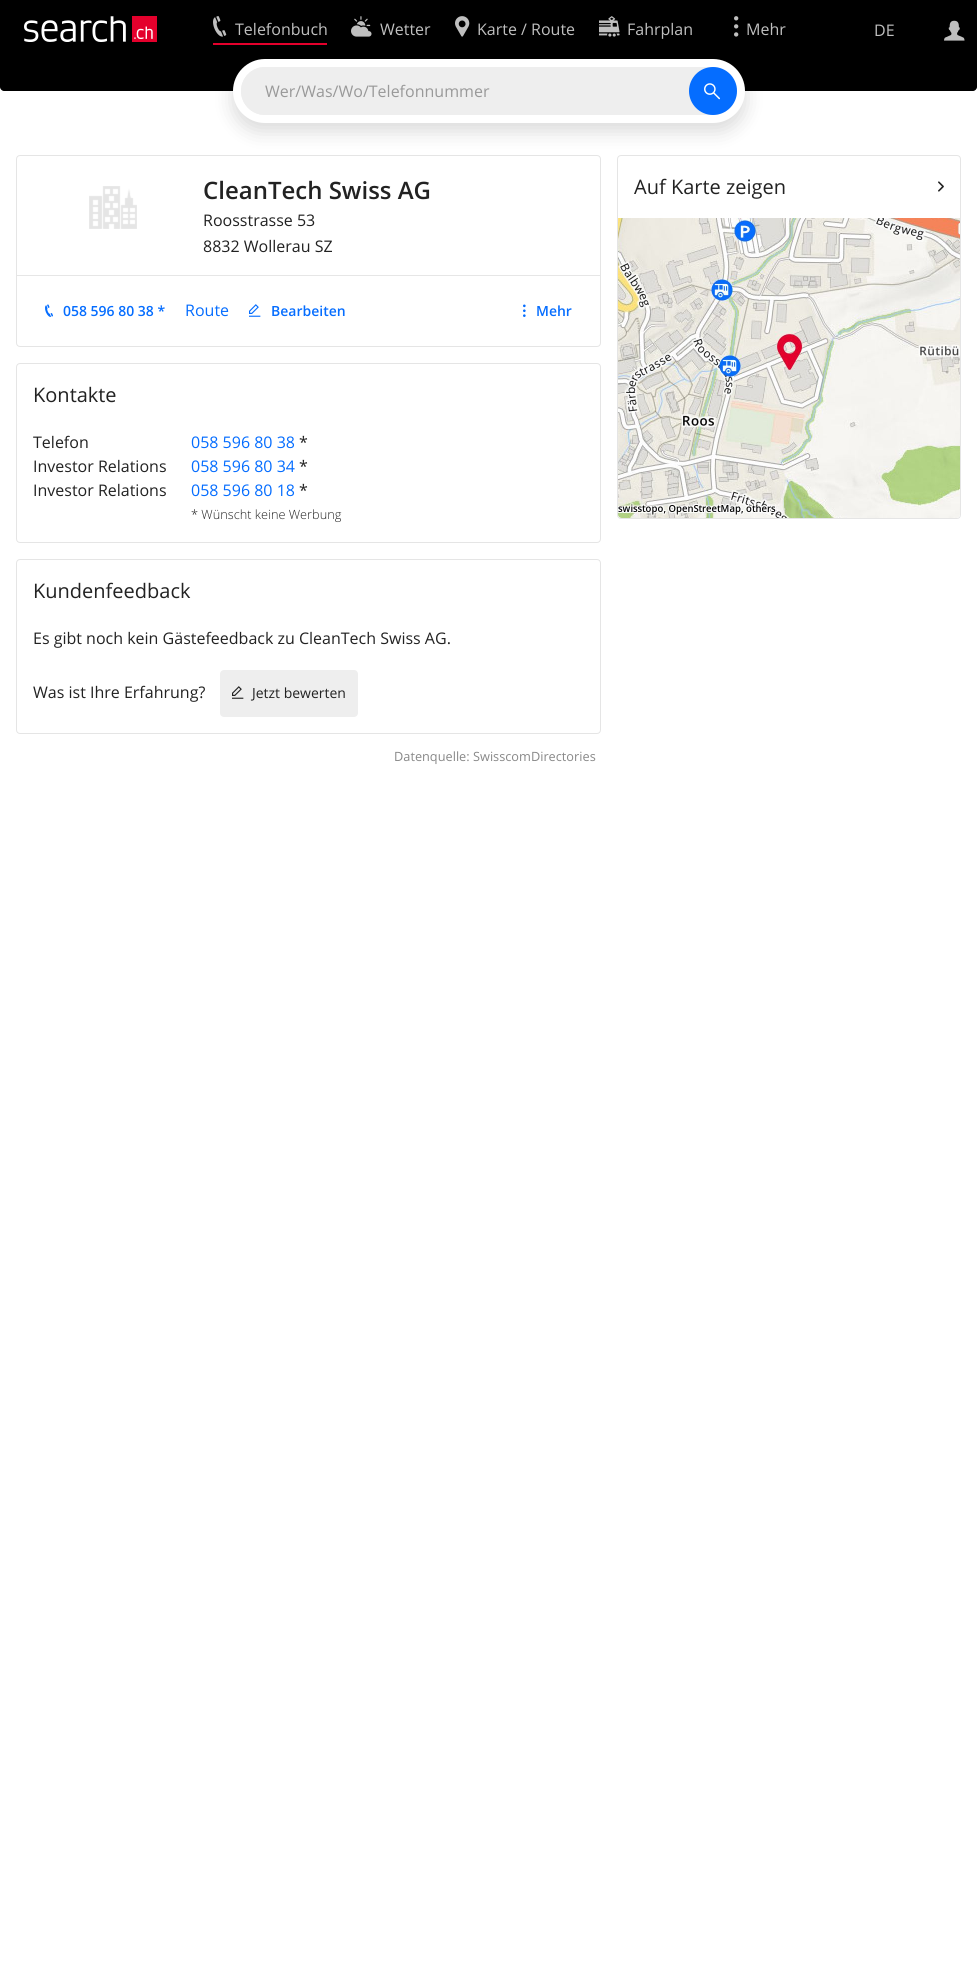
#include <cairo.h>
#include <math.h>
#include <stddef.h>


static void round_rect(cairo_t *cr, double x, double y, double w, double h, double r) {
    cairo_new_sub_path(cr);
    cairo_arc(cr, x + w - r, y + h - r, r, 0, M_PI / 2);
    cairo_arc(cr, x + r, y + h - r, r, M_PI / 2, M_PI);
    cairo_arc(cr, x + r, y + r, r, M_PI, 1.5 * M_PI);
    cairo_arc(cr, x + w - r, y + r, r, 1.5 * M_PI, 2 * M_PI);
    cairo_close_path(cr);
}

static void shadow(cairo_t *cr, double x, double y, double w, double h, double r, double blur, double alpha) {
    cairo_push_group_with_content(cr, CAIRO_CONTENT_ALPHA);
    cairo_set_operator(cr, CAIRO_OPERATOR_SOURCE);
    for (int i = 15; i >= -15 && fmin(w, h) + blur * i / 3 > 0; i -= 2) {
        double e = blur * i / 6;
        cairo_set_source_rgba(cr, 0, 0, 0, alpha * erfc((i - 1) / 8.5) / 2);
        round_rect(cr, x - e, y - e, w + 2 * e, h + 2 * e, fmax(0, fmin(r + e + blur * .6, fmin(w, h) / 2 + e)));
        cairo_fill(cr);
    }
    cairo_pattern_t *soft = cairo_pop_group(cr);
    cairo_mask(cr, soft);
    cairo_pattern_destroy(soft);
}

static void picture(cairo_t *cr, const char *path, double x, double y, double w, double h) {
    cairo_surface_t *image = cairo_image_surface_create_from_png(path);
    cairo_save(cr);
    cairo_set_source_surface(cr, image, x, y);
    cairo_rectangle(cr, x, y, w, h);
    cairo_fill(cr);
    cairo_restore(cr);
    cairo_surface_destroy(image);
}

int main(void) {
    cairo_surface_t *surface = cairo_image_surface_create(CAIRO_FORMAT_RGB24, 977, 1970);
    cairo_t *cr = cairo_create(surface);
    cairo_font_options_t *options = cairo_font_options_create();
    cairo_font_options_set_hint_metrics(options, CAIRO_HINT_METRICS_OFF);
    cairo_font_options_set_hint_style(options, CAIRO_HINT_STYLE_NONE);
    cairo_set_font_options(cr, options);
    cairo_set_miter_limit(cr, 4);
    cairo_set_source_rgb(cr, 1, 1, 1);
    cairo_paint(cr);
    cairo_set_source_rgb(cr, 0, 0, 0);
    cairo_rectangle(cr, 0, 0, 977, 59);
    cairo_fill(cr);
    picture(cr, "img1.png", 24, 16, 133, 26);
    cairo_set_source_rgb(cr, 0.894, 0, 0.173);
    cairo_rectangle(cr, 213, 43, 114, 2);
    cairo_fill(cr);
    picture(cr, "img2.png", 213, 16, 14, 21);
    cairo_select_font_face(cr, "Open Sans", CAIRO_FONT_SLANT_NORMAL, CAIRO_FONT_WEIGHT_NORMAL);
    cairo_set_font_size(cr, 16);
    cairo_set_source_rgb(cr, 0.749, 0.749, 0.749);
    cairo_move_to(cr, 235, 35);
    cairo_show_text(cr, "Telefonbuch");
    picture(cr, "img3.png", 351, 16, 21, 21);
    cairo_move_to(cr, 380, 35);
    cairo_show_text(cr, "Wetter");
    picture(cr, "img4.png", 455, 16, 15, 21);
    cairo_move_to(cr, 477, 35);
    cairo_show_text(cr, "Karte / Route");
    picture(cr, "img5.png", 599, 16, 21, 21);
    cairo_move_to(cr, 627, 35);
    cairo_show_text(cr, "Fahrplan");
    picture(cr, "img6.png", 734, 16, 5, 21);
    cairo_move_to(cr, 746, 35);
    cairo_show_text(cr, "Mehr");
    cairo_move_to(cr, 874, 36);
    cairo_show_text(cr, "DE");
    picture(cr, "img7.png", 944, 20, 21, 21);
    cairo_set_source_rgb(cr, 0, 0, 0);
    cairo_new_path(cr);
    cairo_move_to(cr, 0, 59);
    cairo_line_to(cr, 977, 59);
    cairo_line_to(cr, 977, 87);
    cairo_curve_to(cr, 977, 89, 975, 91, 973, 91);
    cairo_line_to(cr, 4, 91);
    cairo_curve_to(cr, 2, 91, 0, 89, 0, 87);
    cairo_close_path(cr);
    cairo_fill(cr);
    round_rect(cr, 16.5, 155.5, 584, 191, 3.5);
    cairo_set_source_rgb(cr, 0.898, 0.898, 0.898);
    cairo_set_line_width(cr, 1);
    cairo_stroke(cr);
    round_rect(cr, 617.5, 155.5, 343, 363, 3.5);
    cairo_stroke(cr);
    cairo_set_source_rgb(cr, 0, 0, 0);
    shadow(cr, 233, 67, 512, 64, 32, 10, 0.15);
    cairo_set_source_rgb(cr, 1, 1, 1);
    round_rect(cr, 233, 59, 512, 64, 32);
    cairo_fill(cr);
    cairo_set_source_rgb(cr, 0.933, 0.933, 0.933);
    round_rect(cr, 241, 67, 496, 48, 24);
    cairo_fill(cr);
    round_rect(cr, 241, 67, 448, 48, 24);
    cairo_fill(cr);
    cairo_set_source_rgb(cr, 0.6, 0.6, 0.6);
    cairo_move_to(cr, 265, 97);
    cairo_show_text(cr, "Wer/Was/Wo/Telefonnummer");
    cairo_set_source_rgb(cr, 0.02, 0.427, 1);
    cairo_new_path(cr);
    cairo_arc(cr, 713, 91, 24, 0, 2 * M_PI);
    cairo_fill(cr);
    picture(cr, "img8.png", 704, 83, 16, 17);
    picture(cr, "img9.png", 89, 186, 48, 43);
    cairo_select_font_face(cr, "Open Sans SemiBold", CAIRO_FONT_SLANT_NORMAL, CAIRO_FONT_WEIGHT_NORMAL);
    cairo_set_font_size(cr, 24);
    cairo_set_source_rgb(cr, 0.133, 0.133, 0.133);
    cairo_move_to(cr, 203, 199);
    cairo_show_text(cr, "CleanTech Swiss AG");
    cairo_select_font_face(cr, "Open Sans", CAIRO_FONT_SLANT_NORMAL, CAIRO_FONT_WEIGHT_NORMAL);
    cairo_set_font_size(cr, 16);
    cairo_move_to(cr, 203, 226);
    cairo_show_text(cr, "Roosstrasse 53");
    cairo_move_to(cr, 203, 252);
    cairo_show_text(cr, "8832 Wollerau SZ");
    cairo_set_source_rgb(cr, 0.902, 0.902, 0.902);
    cairo_rectangle(cr, 17, 275, 583, 1);
    cairo_fill(cr);
    picture(cr, "img10.png", 45, 304, 8, 13);
    cairo_select_font_face(cr, "Open Sans SemiBold", CAIRO_FONT_SLANT_NORMAL, CAIRO_FONT_WEIGHT_NORMAL);
    cairo_set_font_size(cr, 14);
    cairo_set_source_rgb(cr, 0.02, 0.427, 1);
    cairo_move_to(cr, 63, 316);
    cairo_show_text(cr, "058 596 80 38 *");
    cairo_select_font_face(cr, "Open Sans", CAIRO_FONT_SLANT_NORMAL, CAIRO_FONT_WEIGHT_NORMAL);
    cairo_set_font_size(cr, 16);
    cairo_move_to(cr, 185, 316);
    cairo_show_text(cr, "Route");
    picture(cr, "img11.png", 249, 304, 12, 13);
    cairo_select_font_face(cr, "Open Sans SemiBold", CAIRO_FONT_SLANT_NORMAL, CAIRO_FONT_WEIGHT_NORMAL);
    cairo_set_font_size(cr, 14);
    cairo_move_to(cr, 271, 316);
    cairo_show_text(cr, "Bearbeiten");
    picture(cr, "img12.png", 523, 304, 3, 13);
    cairo_move_to(cr, 536, 316);
    cairo_show_text(cr, "Mehr");
    round_rect(cr, 16.5, 363.5, 584, 179, 3.5);
    cairo_set_source_rgb(cr, 0.898, 0.898, 0.898);
    cairo_stroke(cr);
    cairo_select_font_face(cr, "Open Sans", CAIRO_FONT_SLANT_NORMAL, CAIRO_FONT_WEIGHT_NORMAL);
    cairo_set_font_size(cr, 20);
    cairo_set_source_rgb(cr, 0.133, 0.133, 0.133);
    cairo_move_to(cr, 33, 402);
    cairo_show_text(cr, "Kontakte");
    cairo_set_font_size(cr, 16);
    cairo_move_to(cr, 33, 448);
    cairo_show_text(cr, "Telefon");
    cairo_set_source_rgb(cr, 0.02, 0.427, 1);
    cairo_move_to(cr, 191, 448);
    cairo_show_text(cr, "058 596 80 38");
    cairo_set_source_rgb(cr, 0.133, 0.133, 0.133);
    cairo_move_to(cr, 299, 448);
    cairo_show_text(cr, "*");
    cairo_move_to(cr, 33, 472);
    cairo_show_text(cr, "Investor Relations");
    cairo_set_source_rgb(cr, 0.02, 0.427, 1);
    cairo_move_to(cr, 191, 472);
    cairo_show_text(cr, "058 596 80 34");
    cairo_set_source_rgb(cr, 0.133, 0.133, 0.133);
    cairo_move_to(cr, 299, 472);
    cairo_show_text(cr, "*");
    cairo_move_to(cr, 33, 496);
    cairo_show_text(cr, "Investor Relations");
    cairo_set_source_rgb(cr, 0.02, 0.427, 1);
    cairo_move_to(cr, 191, 496);
    cairo_show_text(cr, "058 596 80 18");
    cairo_set_source_rgb(cr, 0.133, 0.133, 0.133);
    cairo_move_to(cr, 299, 496);
    cairo_show_text(cr, "*");
    cairo_select_font_face(cr, "Open Sans Light", CAIRO_FONT_SLANT_NORMAL, CAIRO_FONT_WEIGHT_NORMAL);
    cairo_set_font_size(cr, 12.75);
    cairo_move_to(cr, 191, 519);
    cairo_show_text(cr, "* Wünscht keine Werbung");
    round_rect(cr, 16.5, 559.5, 584, 174, 3.5);
    cairo_set_source_rgb(cr, 0.898, 0.898, 0.898);
    cairo_stroke(cr);
    cairo_select_font_face(cr, "Open Sans", CAIRO_FONT_SLANT_NORMAL, CAIRO_FONT_WEIGHT_NORMAL);
    cairo_set_font_size(cr, 20);
    cairo_set_source_rgb(cr, 0.133, 0.133, 0.133);
    cairo_move_to(cr, 33, 598);
    cairo_show_text(cr, "Kundenfeedback");
    cairo_set_font_size(cr, 16);
    cairo_move_to(cr, 33, 644);
    cairo_show_text(cr, "Es gibt noch kein Gästefeedback zu CleanTech Swiss AG.");
    cairo_move_to(cr, 33, 698);
    cairo_show_text(cr, "Was ist Ihre Erfahrung?");
    cairo_set_source_rgb(cr, 0.933, 0.933, 0.933);
    round_rect(cr, 220, 670, 138, 47, 4);
    cairo_fill(cr);
    picture(cr, "img13.png", 232, 686, 12, 13);
    cairo_set_font_size(cr, 14);
    cairo_set_source_rgb(cr, 0.133, 0.133, 0.133);
    cairo_move_to(cr, 252, 698);
    cairo_show_text(cr, "Jetzt bewerten");
    cairo_set_font_size(cr, 12.75);
    cairo_set_source_rgb(cr, 0.533, 0.533, 0.533);
    cairo_move_to(cr, 394, 761);
    cairo_show_text(cr, "Datenquelle: SwisscomDirectories");
    cairo_set_font_size(cr, 20);
    cairo_set_source_rgb(cr, 0.133, 0.133, 0.133);
    cairo_move_to(cr, 634, 194);
    cairo_show_text(cr, "Auf Karte zeigen");
    picture(cr, "img14.png", 938, 181, 6, 11);
    picture(cr, "img15.png", 618, 218, 342, 300);
    cairo_surface_write_to_png(surface, "page.png");
    cairo_font_options_destroy(options);
    cairo_destroy(cr);
    cairo_surface_destroy(surface);
    return 0;
}
